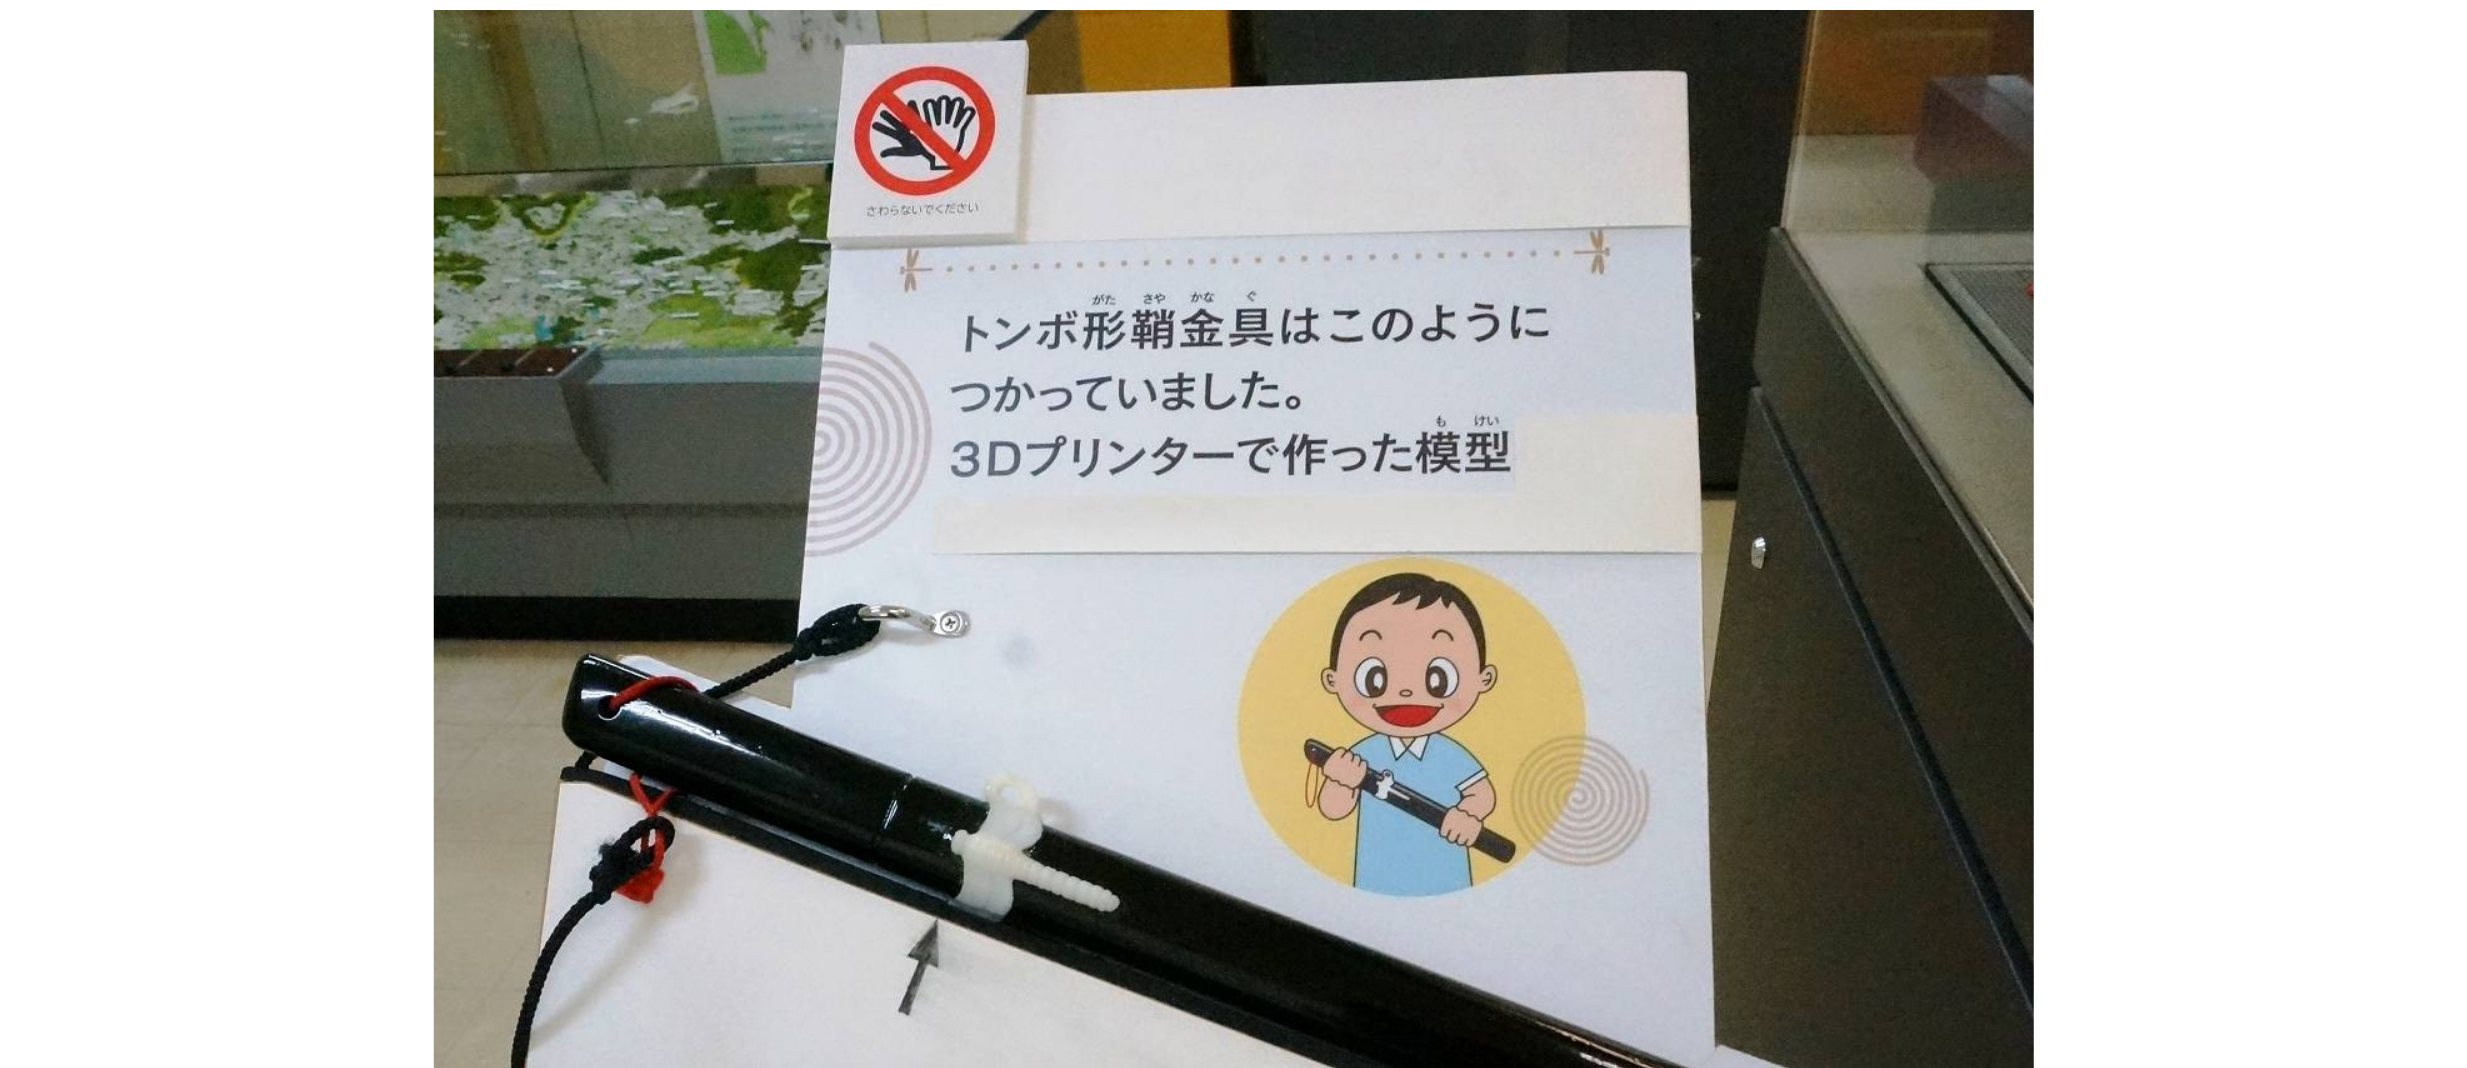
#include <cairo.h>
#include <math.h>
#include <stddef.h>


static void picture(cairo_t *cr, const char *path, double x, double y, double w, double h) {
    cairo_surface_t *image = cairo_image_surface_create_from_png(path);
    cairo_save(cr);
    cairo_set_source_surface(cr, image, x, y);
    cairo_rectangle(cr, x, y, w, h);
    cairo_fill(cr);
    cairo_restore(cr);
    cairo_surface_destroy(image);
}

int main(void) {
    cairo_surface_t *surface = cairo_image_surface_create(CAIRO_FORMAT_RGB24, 2467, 1068);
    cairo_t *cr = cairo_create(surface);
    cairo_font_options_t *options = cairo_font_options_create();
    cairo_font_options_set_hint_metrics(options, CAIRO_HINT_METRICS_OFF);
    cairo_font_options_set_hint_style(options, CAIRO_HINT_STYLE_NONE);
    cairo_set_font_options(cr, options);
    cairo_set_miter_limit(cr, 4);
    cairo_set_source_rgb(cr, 1, 1, 1);
    cairo_paint(cr);
    picture(cr, "img1.png", 433, 10, 1601, 1058);
    cairo_surface_write_to_png(surface, "page.png");
    cairo_font_options_destroy(options);
    cairo_destroy(cr);
    cairo_surface_destroy(surface);
    return 0;
}
